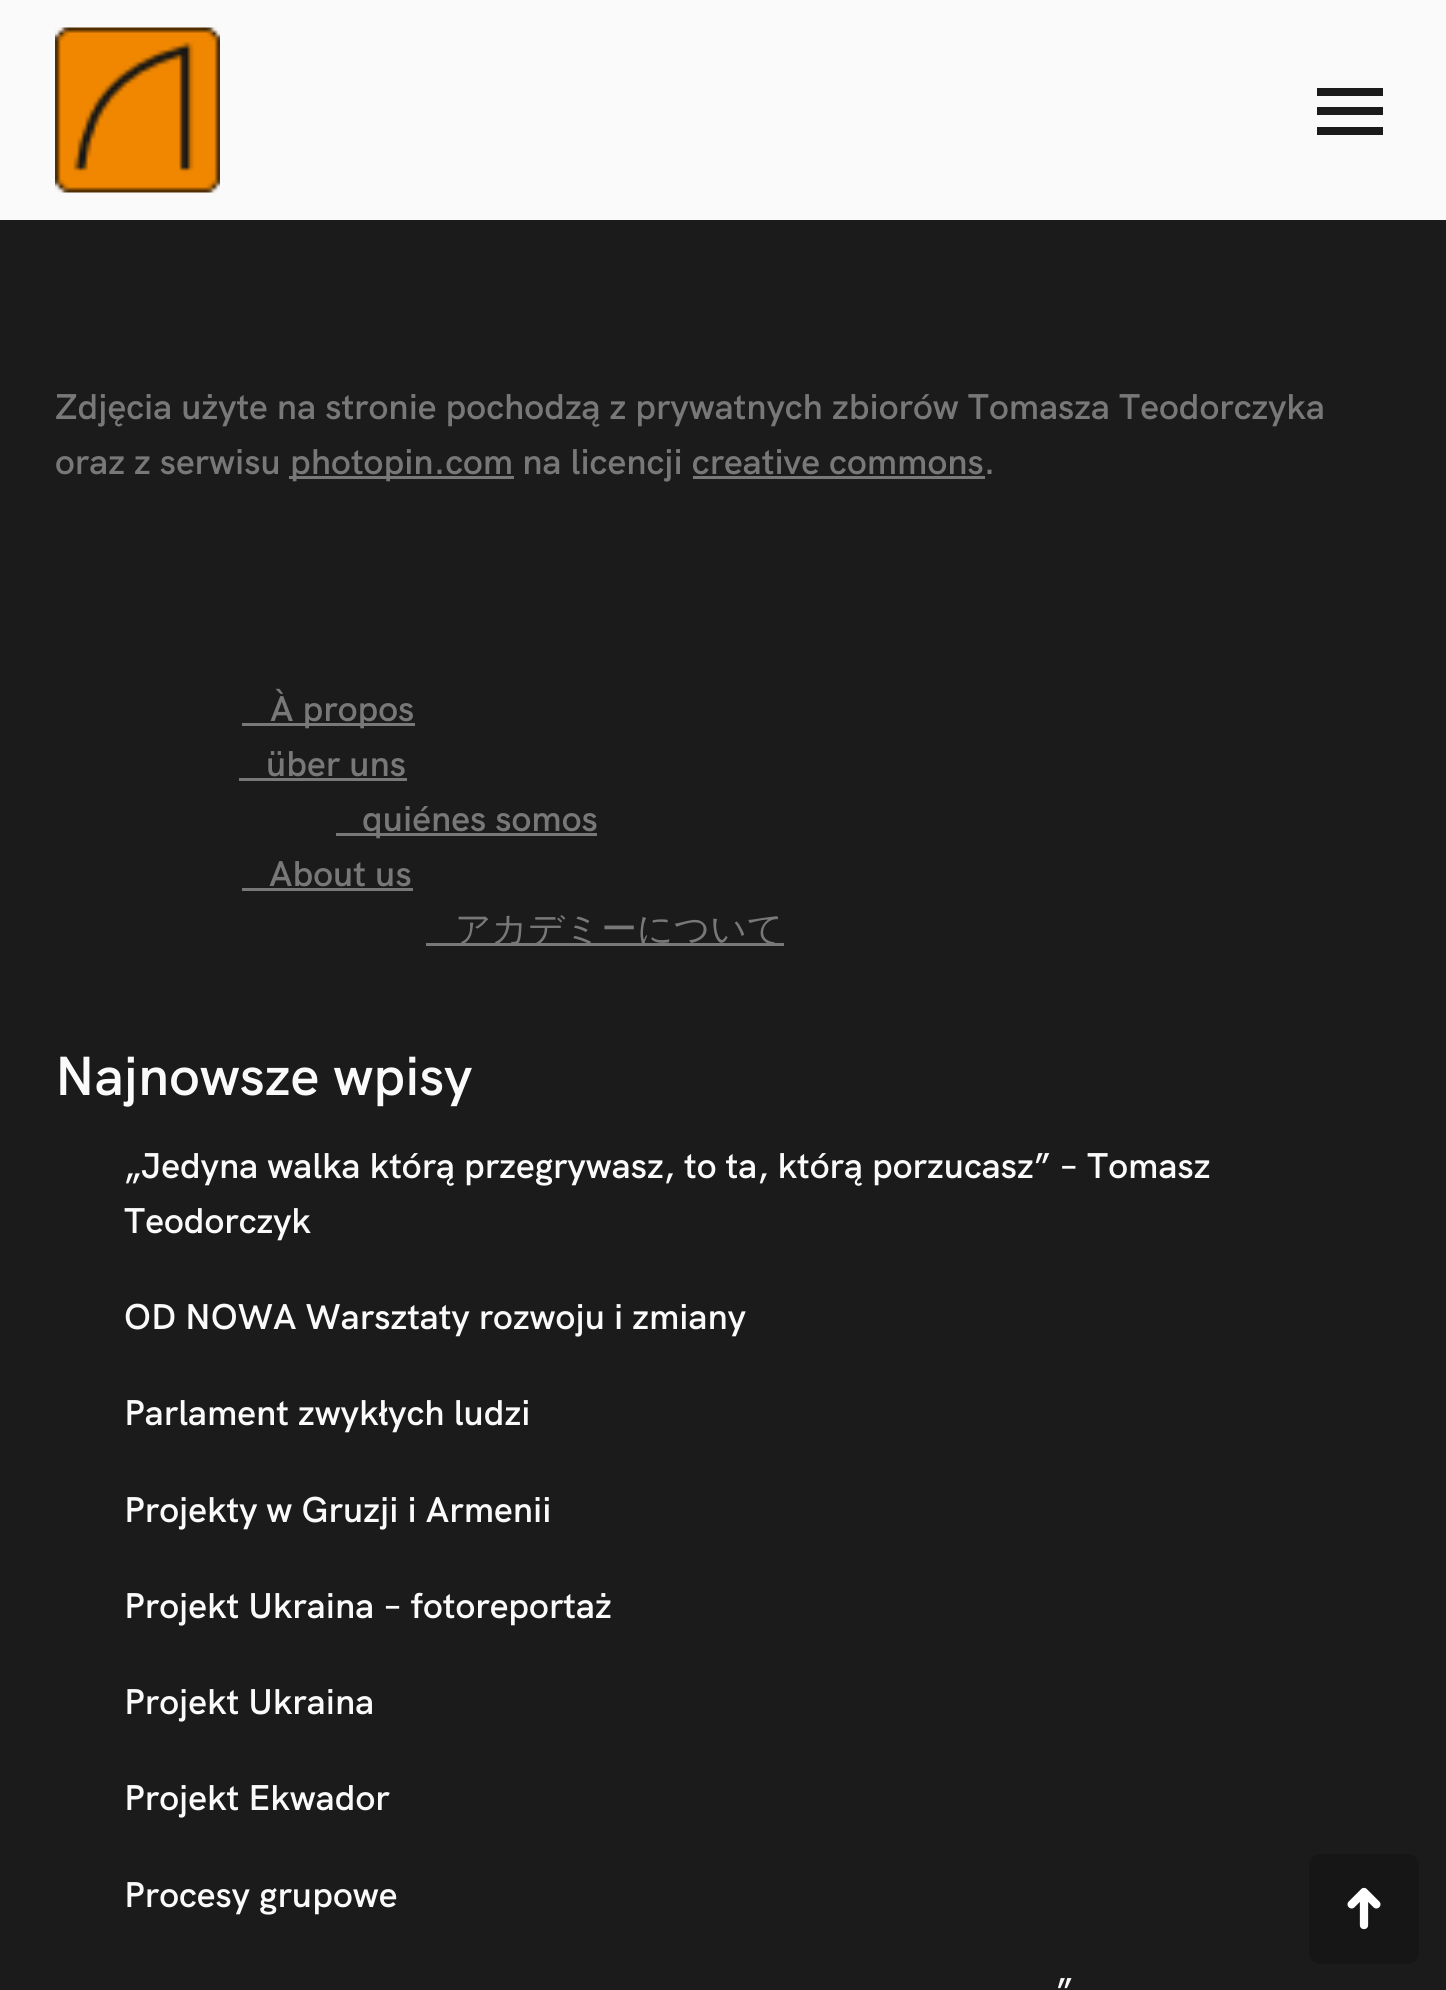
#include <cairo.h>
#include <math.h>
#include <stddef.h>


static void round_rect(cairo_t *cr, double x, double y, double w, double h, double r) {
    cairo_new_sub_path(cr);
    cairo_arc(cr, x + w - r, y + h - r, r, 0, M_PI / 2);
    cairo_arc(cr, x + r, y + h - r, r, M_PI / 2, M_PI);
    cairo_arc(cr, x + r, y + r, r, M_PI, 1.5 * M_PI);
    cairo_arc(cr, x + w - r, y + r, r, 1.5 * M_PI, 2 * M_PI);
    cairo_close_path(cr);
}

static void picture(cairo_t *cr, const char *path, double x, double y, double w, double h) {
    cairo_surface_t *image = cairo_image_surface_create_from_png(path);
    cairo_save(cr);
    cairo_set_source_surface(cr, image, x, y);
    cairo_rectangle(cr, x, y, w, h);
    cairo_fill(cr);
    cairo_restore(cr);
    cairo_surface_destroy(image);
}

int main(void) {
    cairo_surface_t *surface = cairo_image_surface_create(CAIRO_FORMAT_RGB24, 1446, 1990);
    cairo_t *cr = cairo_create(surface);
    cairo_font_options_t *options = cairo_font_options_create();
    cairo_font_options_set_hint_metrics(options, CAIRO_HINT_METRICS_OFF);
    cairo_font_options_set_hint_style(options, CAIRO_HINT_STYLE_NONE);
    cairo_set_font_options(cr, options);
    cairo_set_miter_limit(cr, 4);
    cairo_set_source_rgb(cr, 0.106, 0.106, 0.106);
    cairo_paint(cr);
    cairo_set_source_rgb(cr, 0.98, 0.98, 0.98);
    cairo_rectangle(cr, 0, 0, 1446, 220);
    cairo_fill(cr);
    picture(cr, "img1.png", 55, 27, 165, 166);
    cairo_set_source_rgb(cr, 0.106, 0.106, 0.106);
    cairo_rectangle(cr, 1317, 88, 66, 8);
    cairo_fill(cr);
    cairo_rectangle(cr, 1317, 107, 66, 8);
    cairo_fill(cr);
    cairo_rectangle(cr, 1317, 127, 66, 8);
    cairo_fill(cr);
    cairo_select_font_face(cr, "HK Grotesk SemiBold", CAIRO_FONT_SLANT_NORMAL, CAIRO_FONT_WEIGHT_NORMAL);
    cairo_set_font_size(cr, 35.75);
    cairo_set_source_rgb(cr, 0.471, 0.471, 0.471);
    cairo_move_to(cr, 55, 419);
    cairo_show_text(cr, "Zdjęcia użyte na stronie pochodzą z prywatnych zbiorów Tomasza Teodorczyka");
    cairo_move_to(cr, 55, 474);
    cairo_show_text(cr, "oraz z serwisu");
    cairo_rectangle(cr, 289, 476, 225, 3);
    cairo_fill(cr);
    cairo_move_to(cr, 290, 474);
    cairo_show_text(cr, "photopin.com na licencji creative commons.");
    cairo_rectangle(cr, 693, 476, 292, 3);
    cairo_fill(cr);
    cairo_rectangle(cr, 242, 723, 173, 3);
    cairo_fill(cr);
    cairo_move_to(cr, 270, 721);
    cairo_show_text(cr, "À propos");
    cairo_move_to(cr, 266, 776);
    cairo_show_text(cr, "über uns");
    cairo_rectangle(cr, 239, 778, 168, 3);
    cairo_fill(cr);
    cairo_rectangle(cr, 336, 833, 261, 3);
    cairo_fill(cr);
    cairo_move_to(cr, 362, 831);
    cairo_show_text(cr, "quiénes somos");
    cairo_move_to(cr, 269, 886);
    cairo_show_text(cr, "About us");
    cairo_rectangle(cr, 242, 888, 171, 3);
    cairo_fill(cr);
    cairo_rectangle(cr, 426, 943, 358, 3);
    cairo_fill(cr);
    cairo_select_font_face(cr, "WenQuanYi Zen Hei Medium", CAIRO_FONT_SLANT_NORMAL, CAIRO_FONT_WEIGHT_NORMAL);
    cairo_move_to(cr, 455, 941);
    cairo_show_text(cr, "アカデミーについて");
    cairo_select_font_face(cr, "HK Grotesk SemiBold", CAIRO_FONT_SLANT_NORMAL, CAIRO_FONT_WEIGHT_NORMAL);
    cairo_set_font_size(cr, 55);
    cairo_set_source_rgb(cr, 0.98, 0.98, 0.98);
    cairo_move_to(cr, 55, 1095);
    cairo_show_text(cr, "Najnowsze wpisy");
    cairo_set_font_size(cr, 35.75);
    cairo_move_to(cr, 124, 1178);
    cairo_show_text(cr, "„Jedyna walka którą przegrywasz, to ta, którą porzucasz” – Tomasz");
    cairo_move_to(cr, 124, 1233);
    cairo_show_text(cr, "Teodorczyk");
    cairo_move_to(cr, 124, 1329);
    cairo_show_text(cr, "OD NOWA Warsztaty rozwoju i zmiany");
    cairo_move_to(cr, 124, 1425);
    cairo_show_text(cr, "Parlament zwykłych ludzi");
    cairo_move_to(cr, 124, 1522);
    cairo_show_text(cr, "Projekty w Gruzji i Armenii");
    cairo_move_to(cr, 124, 1618);
    cairo_show_text(cr, "Projekt Ukraina – fotoreportaż");
    cairo_move_to(cr, 124, 1714);
    cairo_show_text(cr, "Projekt Ukraina");
    cairo_move_to(cr, 124, 1810);
    cairo_show_text(cr, "Projekt Ekwador");
    cairo_move_to(cr, 124, 1907);
    cairo_show_text(cr, "Procesy grupowe");
    cairo_move_to(cr, 1056, 2003);
    cairo_show_text(cr, "”");
    cairo_set_source_rgb(cr, 0.086, 0.086, 0.086);
    round_rect(cr, 1309, 1854, 110, 110, 11);
    cairo_fill(cr);
    picture(cr, "img2.png", 1347, 1887, 34, 43);
    cairo_surface_write_to_png(surface, "page.png");
    cairo_font_options_destroy(options);
    cairo_destroy(cr);
    cairo_surface_destroy(surface);
    return 0;
}
